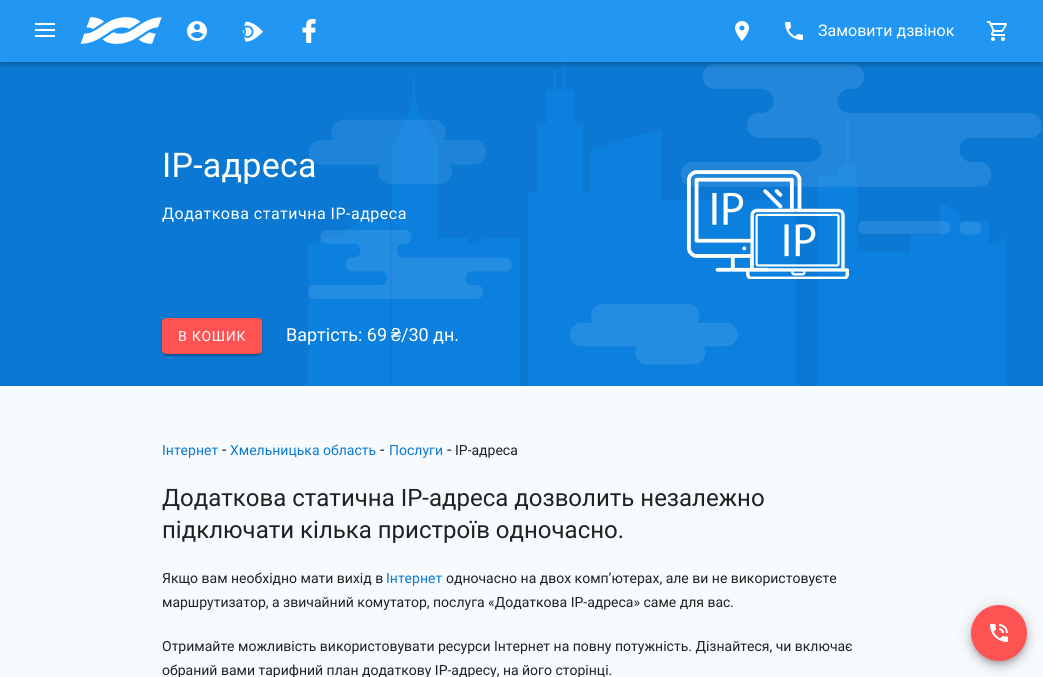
#include <cairo.h>
#include <math.h>
#include <stddef.h>


static void spaced_text(cairo_t *cr, double x, double y, const char *s, double letter, double word) {
    cairo_move_to(cr, x, y);
    while (*s) {
        char ch[5] = {0};
        int n = 0;
        do ch[n++] = *s++; while ((*s & 0xC0) == 0x80);
        cairo_show_text(cr, ch);
        cairo_rel_move_to(cr, letter + word * (*ch == ' '), 0);
    }
}

static void round_rect(cairo_t *cr, double x, double y, double w, double h, double r) {
    cairo_new_sub_path(cr);
    cairo_arc(cr, x + w - r, y + h - r, r, 0, M_PI / 2);
    cairo_arc(cr, x + r, y + h - r, r, M_PI / 2, M_PI);
    cairo_arc(cr, x + r, y + r, r, M_PI, 1.5 * M_PI);
    cairo_arc(cr, x + w - r, y + r, r, 1.5 * M_PI, 2 * M_PI);
    cairo_close_path(cr);
}

static void shadow(cairo_t *cr, double x, double y, double w, double h, double r, double blur, double alpha) {
    cairo_push_group_with_content(cr, CAIRO_CONTENT_ALPHA);
    cairo_set_operator(cr, CAIRO_OPERATOR_SOURCE);
    for (int i = 15; i >= -15 && fmin(w, h) + blur * i / 3 > 0; i -= 2) {
        double e = blur * i / 6;
        cairo_set_source_rgba(cr, 0, 0, 0, alpha * erfc((i - 1) / 8.5) / 2);
        round_rect(cr, x - e, y - e, w + 2 * e, h + 2 * e, fmax(0, fmin(r + e + blur * .6, fmin(w, h) / 2 + e)));
        cairo_fill(cr);
    }
    cairo_pattern_t *soft = cairo_pop_group(cr);
    cairo_mask(cr, soft);
    cairo_pattern_destroy(soft);
}

static void picture(cairo_t *cr, const char *path, double x, double y, double w, double h) {
    cairo_surface_t *image = cairo_image_surface_create_from_png(path);
    cairo_save(cr);
    cairo_set_source_surface(cr, image, x, y);
    cairo_rectangle(cr, x, y, w, h);
    cairo_fill(cr);
    cairo_restore(cr);
    cairo_surface_destroy(image);
}

int main(void) {
    cairo_surface_t *surface = cairo_image_surface_create(CAIRO_FORMAT_RGB24, 1043, 677);
    cairo_t *cr = cairo_create(surface);
    cairo_font_options_t *options = cairo_font_options_create();
    cairo_font_options_set_hint_metrics(options, CAIRO_HINT_METRICS_OFF);
    cairo_font_options_set_hint_style(options, CAIRO_HINT_STYLE_NONE);
    cairo_set_font_options(cr, options);
    cairo_set_miter_limit(cr, 4);
    cairo_set_source_rgb(cr, 0.969, 0.984, 0.996);
    cairo_paint(cr);
    cairo_set_source_rgb(cr, 0.043, 0.475, 0.827);
    cairo_rectangle(cr, 0, 62, 1043, 324);
    cairo_fill(cr);
    picture(cr, "img8.png", 308, 62, 734, 324);
    cairo_set_source_rgb(cr, 0, 0, 0);
    shadow(cr, 0, 1, 1043, 62, 0, 5, 0.08);
    shadow(cr, 0, 4, 1043, 62, 0, 2.5, 0.1);
    shadow(cr, 1, 3, 1041, 60, 0, 2, 0.14);
    cairo_set_source_rgb(cr, 0.129, 0.588, 0.953);
    cairo_rectangle(cr, 0, 0, 1043, 62);
    cairo_fill(cr);
    cairo_set_source_rgb(cr, 1, 1, 1);
    cairo_rectangle(cr, 35, 29, 20, 2);
    cairo_fill(cr);
    cairo_rectangle(cr, 35, 23, 20, 2);
    cairo_fill(cr);
    cairo_rectangle(cr, 35, 35, 20, 2);
    cairo_fill(cr);
    picture(cr, "img1.png", 80, 17, 82, 27);
    picture(cr, "img2.png", 187, 21, 20, 20);
    picture(cr, "img3.png", 243, 21, 20, 21);
    picture(cr, "img4.png", 302, 19, 14, 24);
    picture(cr, "img5.png", 735, 21, 14, 20);
    picture(cr, "img6.png", 785, 22, 18, 18);
    cairo_select_font_face(cr, "Roboto", CAIRO_FONT_SLANT_NORMAL, CAIRO_FONT_WEIGHT_NORMAL);
    cairo_set_font_size(cr, 16);
    cairo_move_to(cr, 818, 36);
    cairo_show_text(cr, "Замовити дзвінок");
    picture(cr, "img7.png", 987, 21, 20, 20);
    cairo_set_font_size(cr, 34);
    spaced_text(cr, 162, 177, "ІР-адреса", 0.25, 0);
    cairo_set_font_size(cr, 16);
    spaced_text(cr, 162, 219, "Додаткова статична IP-адреса", 0.5, 0);
    cairo_set_source_rgb(cr, 0, 0, 0);
    shadow(cr, 162, 319, 100, 36, 4, 2.5, 0.12);
    shadow(cr, 162, 320, 100, 36, 4, 1, 0.14);
    shadow(cr, 164, 323, 96, 32, 2, 0.5, 0.2);
    cairo_set_source_rgb(cr, 1, 0.322, 0.322);
    round_rect(cr, 162, 318, 100, 36, 4);
    cairo_fill(cr);
    cairo_set_font_size(cr, 14);
    cairo_set_source_rgb(cr, 1, 1, 1);
    spaced_text(cr, 178, 341, "В КОШИК", 0.75, 0);
    cairo_set_font_size(cr, 18);
    cairo_move_to(cr, 286, 341);
    cairo_show_text(cr, "Вартість: 69");
    cairo_select_font_face(cr, "Liberation Sans", CAIRO_FONT_SLANT_NORMAL, CAIRO_FONT_WEIGHT_NORMAL);
    cairo_move_to(cr, 391, 341);
    cairo_show_text(cr, "₴");
    cairo_select_font_face(cr, "Roboto", CAIRO_FONT_SLANT_NORMAL, CAIRO_FONT_WEIGHT_NORMAL);
    cairo_move_to(cr, 401, 341);
    cairo_show_text(cr, "/30 дн.");
    picture(cr, "img9.png", 687, 170, 162, 109);
    cairo_set_font_size(cr, 14);
    cairo_set_source_rgb(cr, 0.043, 0.475, 0.827);
    cairo_move_to(cr, 162, 455);
    cairo_show_text(cr, "Інтернет");
    cairo_set_font_size(cr, 16);
    cairo_set_source_rgb(cr, 0.125, 0.129, 0.129);
    cairo_move_to(cr, 222, 455);
    cairo_show_text(cr, "-");
    cairo_set_font_size(cr, 14);
    cairo_set_source_rgb(cr, 0.043, 0.475, 0.827);
    cairo_move_to(cr, 230, 455);
    cairo_show_text(cr, "Хмельницька область");
    cairo_set_font_size(cr, 16);
    cairo_set_source_rgb(cr, 0.125, 0.129, 0.129);
    cairo_move_to(cr, 380, 455);
    cairo_show_text(cr, "-");
    cairo_set_font_size(cr, 14);
    cairo_set_source_rgb(cr, 0.043, 0.475, 0.827);
    cairo_move_to(cr, 389, 455);
    cairo_show_text(cr, "Послуги");
    cairo_set_font_size(cr, 16);
    cairo_set_source_rgb(cr, 0.125, 0.129, 0.129);
    cairo_move_to(cr, 447, 455);
    cairo_show_text(cr, "-");
    cairo_set_font_size(cr, 14);
    cairo_move_to(cr, 455, 455);
    cairo_show_text(cr, "ІР-адреса");
    cairo_set_font_size(cr, 24);
    cairo_move_to(cr, 162, 506);
    cairo_show_text(cr, "Додаткова статична IP-адреса дозволить незалежно");
    cairo_move_to(cr, 162, 538);
    cairo_show_text(cr, "підключати кілька пристроїв одночасно.");
    cairo_set_font_size(cr, 14);
    cairo_move_to(cr, 162, 583);
    cairo_show_text(cr, "Якщо вам необхідно мати вихід в");
    cairo_set_source_rgb(cr, 0.043, 0.475, 0.827);
    cairo_move_to(cr, 386, 583);
    cairo_show_text(cr, "Інтернет");
    cairo_set_source_rgb(cr, 0.125, 0.129, 0.129);
    cairo_move_to(cr, 446, 583);
    cairo_show_text(cr, "одночасно на двох комп’ютерах, але ви не використовуєте");
    cairo_move_to(cr, 162, 607);
    cairo_show_text(cr, "маршрутизатор, а звичайний комутатор, послуга «Додаткова IP-адреса» саме для вас.");
    cairo_move_to(cr, 162, 651);
    cairo_show_text(cr, "Отримайте можливість використовувати ресурси Інтернет на повну потужність. Дізнайтеся, чи включає");
    cairo_move_to(cr, 162, 675);
    cairo_show_text(cr, "обраний вами тарифний план додаткову ІР-адресу, на його сторінці.");
    cairo_set_source_rgb(cr, 0, 0, 0);
    shadow(cr, 971, 606, 56, 56, 28, 9, 0.12);
    shadow(cr, 971, 611, 56, 56, 28, 5, 0.14);
    shadow(cr, 972, 609, 54, 54, 27, 2.5, 0.2);
    cairo_set_source_rgb(cr, 1, 0.322, 0.322);
    cairo_arc(cr, 999, 633, 28, 0, 2 * M_PI);
    cairo_fill(cr);
    picture(cr, "img10.png", 990, 624, 18, 18);
    cairo_surface_write_to_png(surface, "page.png");
    cairo_font_options_destroy(options);
    cairo_destroy(cr);
    cairo_surface_destroy(surface);
    return 0;
}
